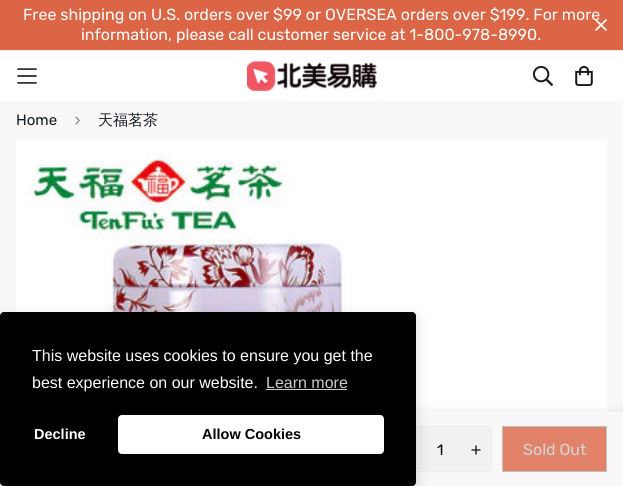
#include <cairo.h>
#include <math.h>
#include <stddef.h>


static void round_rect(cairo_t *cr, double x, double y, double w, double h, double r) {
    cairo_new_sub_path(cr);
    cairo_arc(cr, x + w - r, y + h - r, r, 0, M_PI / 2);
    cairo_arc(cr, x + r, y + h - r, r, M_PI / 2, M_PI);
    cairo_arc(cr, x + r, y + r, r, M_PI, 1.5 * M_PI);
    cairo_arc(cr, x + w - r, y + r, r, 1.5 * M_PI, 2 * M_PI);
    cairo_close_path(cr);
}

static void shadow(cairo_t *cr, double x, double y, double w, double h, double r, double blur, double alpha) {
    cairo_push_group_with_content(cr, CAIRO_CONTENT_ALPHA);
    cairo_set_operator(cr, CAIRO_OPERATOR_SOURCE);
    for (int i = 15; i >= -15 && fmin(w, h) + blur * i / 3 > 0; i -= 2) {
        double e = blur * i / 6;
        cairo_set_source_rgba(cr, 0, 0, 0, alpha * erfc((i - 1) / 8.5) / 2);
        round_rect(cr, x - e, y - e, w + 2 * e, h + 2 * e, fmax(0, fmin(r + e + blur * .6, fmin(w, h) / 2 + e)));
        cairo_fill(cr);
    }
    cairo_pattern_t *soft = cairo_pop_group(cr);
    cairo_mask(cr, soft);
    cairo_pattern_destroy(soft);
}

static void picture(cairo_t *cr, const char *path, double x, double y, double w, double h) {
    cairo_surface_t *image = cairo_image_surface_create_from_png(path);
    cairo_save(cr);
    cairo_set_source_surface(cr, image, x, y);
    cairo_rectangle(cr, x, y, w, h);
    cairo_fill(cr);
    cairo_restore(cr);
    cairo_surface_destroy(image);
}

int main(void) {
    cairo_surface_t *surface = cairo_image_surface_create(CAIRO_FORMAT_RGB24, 623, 486);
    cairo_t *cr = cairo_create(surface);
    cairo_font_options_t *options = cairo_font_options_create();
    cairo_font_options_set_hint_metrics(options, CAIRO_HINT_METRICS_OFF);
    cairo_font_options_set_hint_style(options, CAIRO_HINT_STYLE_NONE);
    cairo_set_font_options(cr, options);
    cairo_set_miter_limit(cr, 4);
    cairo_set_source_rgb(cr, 0.973, 0.965, 0.969);
    cairo_paint(cr);
    cairo_set_source_rgb(cr, 0.863, 0.396, 0.271);
    cairo_rectangle(cr, 0, 0, 623, 50);
    cairo_fill(cr);
    cairo_set_source_rgb(cr, 0.933, 0.933, 0.878);
    cairo_rectangle(cr, 0, 50, 623, 1);
    cairo_fill(cr);
    cairo_select_font_face(cr, "Rubik", CAIRO_FONT_SLANT_NORMAL, CAIRO_FONT_WEIGHT_NORMAL);
    cairo_set_font_size(cr, 16);
    cairo_set_source_rgb(cr, 1, 1, 1);
    cairo_move_to(cr, 23, 20);
    cairo_show_text(cr, "Free shipping on U.S. orders over $99 or OVERSEA orders over $199. For more");
    cairo_move_to(cr, 81, 40);
    cairo_show_text(cr, "information, please call customer service at 1-800-978-8990.");
    cairo_new_path(cr);
    cairo_move_to(cr, 596, 30);
    cairo_line_to(cr, 606, 20);
    cairo_move_to(cr, 596, 20);
    cairo_line_to(cr, 606, 30);
    cairo_set_line_width(cr, 1.7);
    cairo_set_line_cap(cr, CAIRO_LINE_CAP_ROUND);
    cairo_set_line_join(cr, CAIRO_LINE_JOIN_ROUND);
    cairo_stroke(cr);
    cairo_rectangle(cr, 0, 51, 623, 50);
    cairo_fill(cr);
    picture(cr, "img1.png", 17, 68, 20, 16);
    picture(cr, "img2.png", 247, 61, 130, 30);
    picture(cr, "img3.png", 533, 66, 20, 20);
    picture(cr, "img4.png", 575, 66, 18, 20);
    cairo_set_font_size(cr, 15);
    cairo_set_source_rgb(cr, 0.086, 0.114, 0.145);
    cairo_move_to(cr, 16, 125);
    cairo_show_text(cr, "Home");
    picture(cr, "img5.png", 75, 116, 5, 9);
    cairo_select_font_face(cr, "WenQuanYi Zen Hei Medium", CAIRO_FONT_SLANT_NORMAL, CAIRO_FONT_WEIGHT_NORMAL);
    cairo_move_to(cr, 98, 125);
    cairo_show_text(cr, "天福茗茶");
    picture(cr, "img6.png", 16, 140, 591, 272);
    cairo_set_source_rgb(cr, 0, 0, 0);
    shadow(cr, 0, 412, 623, 74, 0, 5, 0.09);
    cairo_set_source_rgb(cr, 0.973, 0.965, 0.969);
    cairo_rectangle(cr, 0, 412, 623, 74);
    cairo_fill(cr);
    cairo_set_source_rgb(cr, 0.945, 0.945, 0.945);
    round_rect(cr, 388.5, 426.5, 103, 45, 3.5);
    cairo_fill_preserve(cr);
    cairo_set_source_rgb(cr, 0.933, 0.933, 0.878);
    cairo_set_line_width(cr, 1);
    cairo_set_line_cap(cr, CAIRO_LINE_CAP_BUTT);
    cairo_set_line_join(cr, CAIRO_LINE_JOIN_MITER);
    cairo_stroke(cr);
    cairo_select_font_face(cr, "Rubik", CAIRO_FONT_SLANT_NORMAL, CAIRO_FONT_WEIGHT_NORMAL);
    cairo_set_source_rgb(cr, 0, 0, 0);
    cairo_move_to(cr, 437, 455);
    cairo_show_text(cr, "1");
    picture(cr, "img7.png", 471, 445, 10, 10);
    cairo_set_source_rgb(cr, 0.886, 0.51, 0.412);
    cairo_rectangle(cr, 502.5, 426.5, 104, 45);
    cairo_fill_preserve(cr);
    cairo_set_source_rgb(cr, 0.753, 0.753, 0.753);
    cairo_stroke(cr);
    cairo_set_font_size(cr, 16);
    cairo_set_source_rgb(cr, 0.839, 0.839, 0.839);
    cairo_move_to(cr, 523, 455);
    cairo_show_text(cr, "Sold Out");
    cairo_set_source_rgb(cr, 0, 0, 0);
    shadow(cr, 0, 317, 416, 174, 4, 7.5, 0.15);
    cairo_set_source_rgb(cr, 0, 0, 0);
    round_rect(cr, 0, 312, 416, 174, 4);
    cairo_fill(cr);
    cairo_select_font_face(cr, "Liberation Sans", CAIRO_FONT_SLANT_NORMAL, CAIRO_FONT_WEIGHT_NORMAL);
    cairo_set_source_rgb(cr, 1, 1, 1);
    cairo_move_to(cr, 32, 361);
    cairo_show_text(cr, "This website uses cookies to ensure you get the");
    cairo_move_to(cr, 32, 388);
    cairo_show_text(cr, "best experience on our website.");
    cairo_set_source_rgb(cr, 0.8, 0.8, 0.8);
    cairo_move_to(cr, 266, 388);
    cairo_show_text(cr, "Learn more");
    cairo_rectangle(cr, 266, 389, 81, 1);
    cairo_fill(cr);
    cairo_select_font_face(cr, "Liberation Sans", CAIRO_FONT_SLANT_NORMAL, CAIRO_FONT_WEIGHT_BOLD);
    cairo_set_font_size(cr, 14.5);
    cairo_set_source_rgb(cr, 1, 1, 1);
    cairo_move_to(cr, 34, 439);
    cairo_show_text(cr, "Decline");
    round_rect(cr, 118, 415, 266, 39, 4);
    cairo_fill(cr);
    cairo_set_source_rgb(cr, 0, 0, 0);
    cairo_move_to(cr, 202, 439);
    cairo_show_text(cr, "Allow Cookies");
    cairo_surface_write_to_png(surface, "page.png");
    cairo_font_options_destroy(options);
    cairo_destroy(cr);
    cairo_surface_destroy(surface);
    return 0;
}
